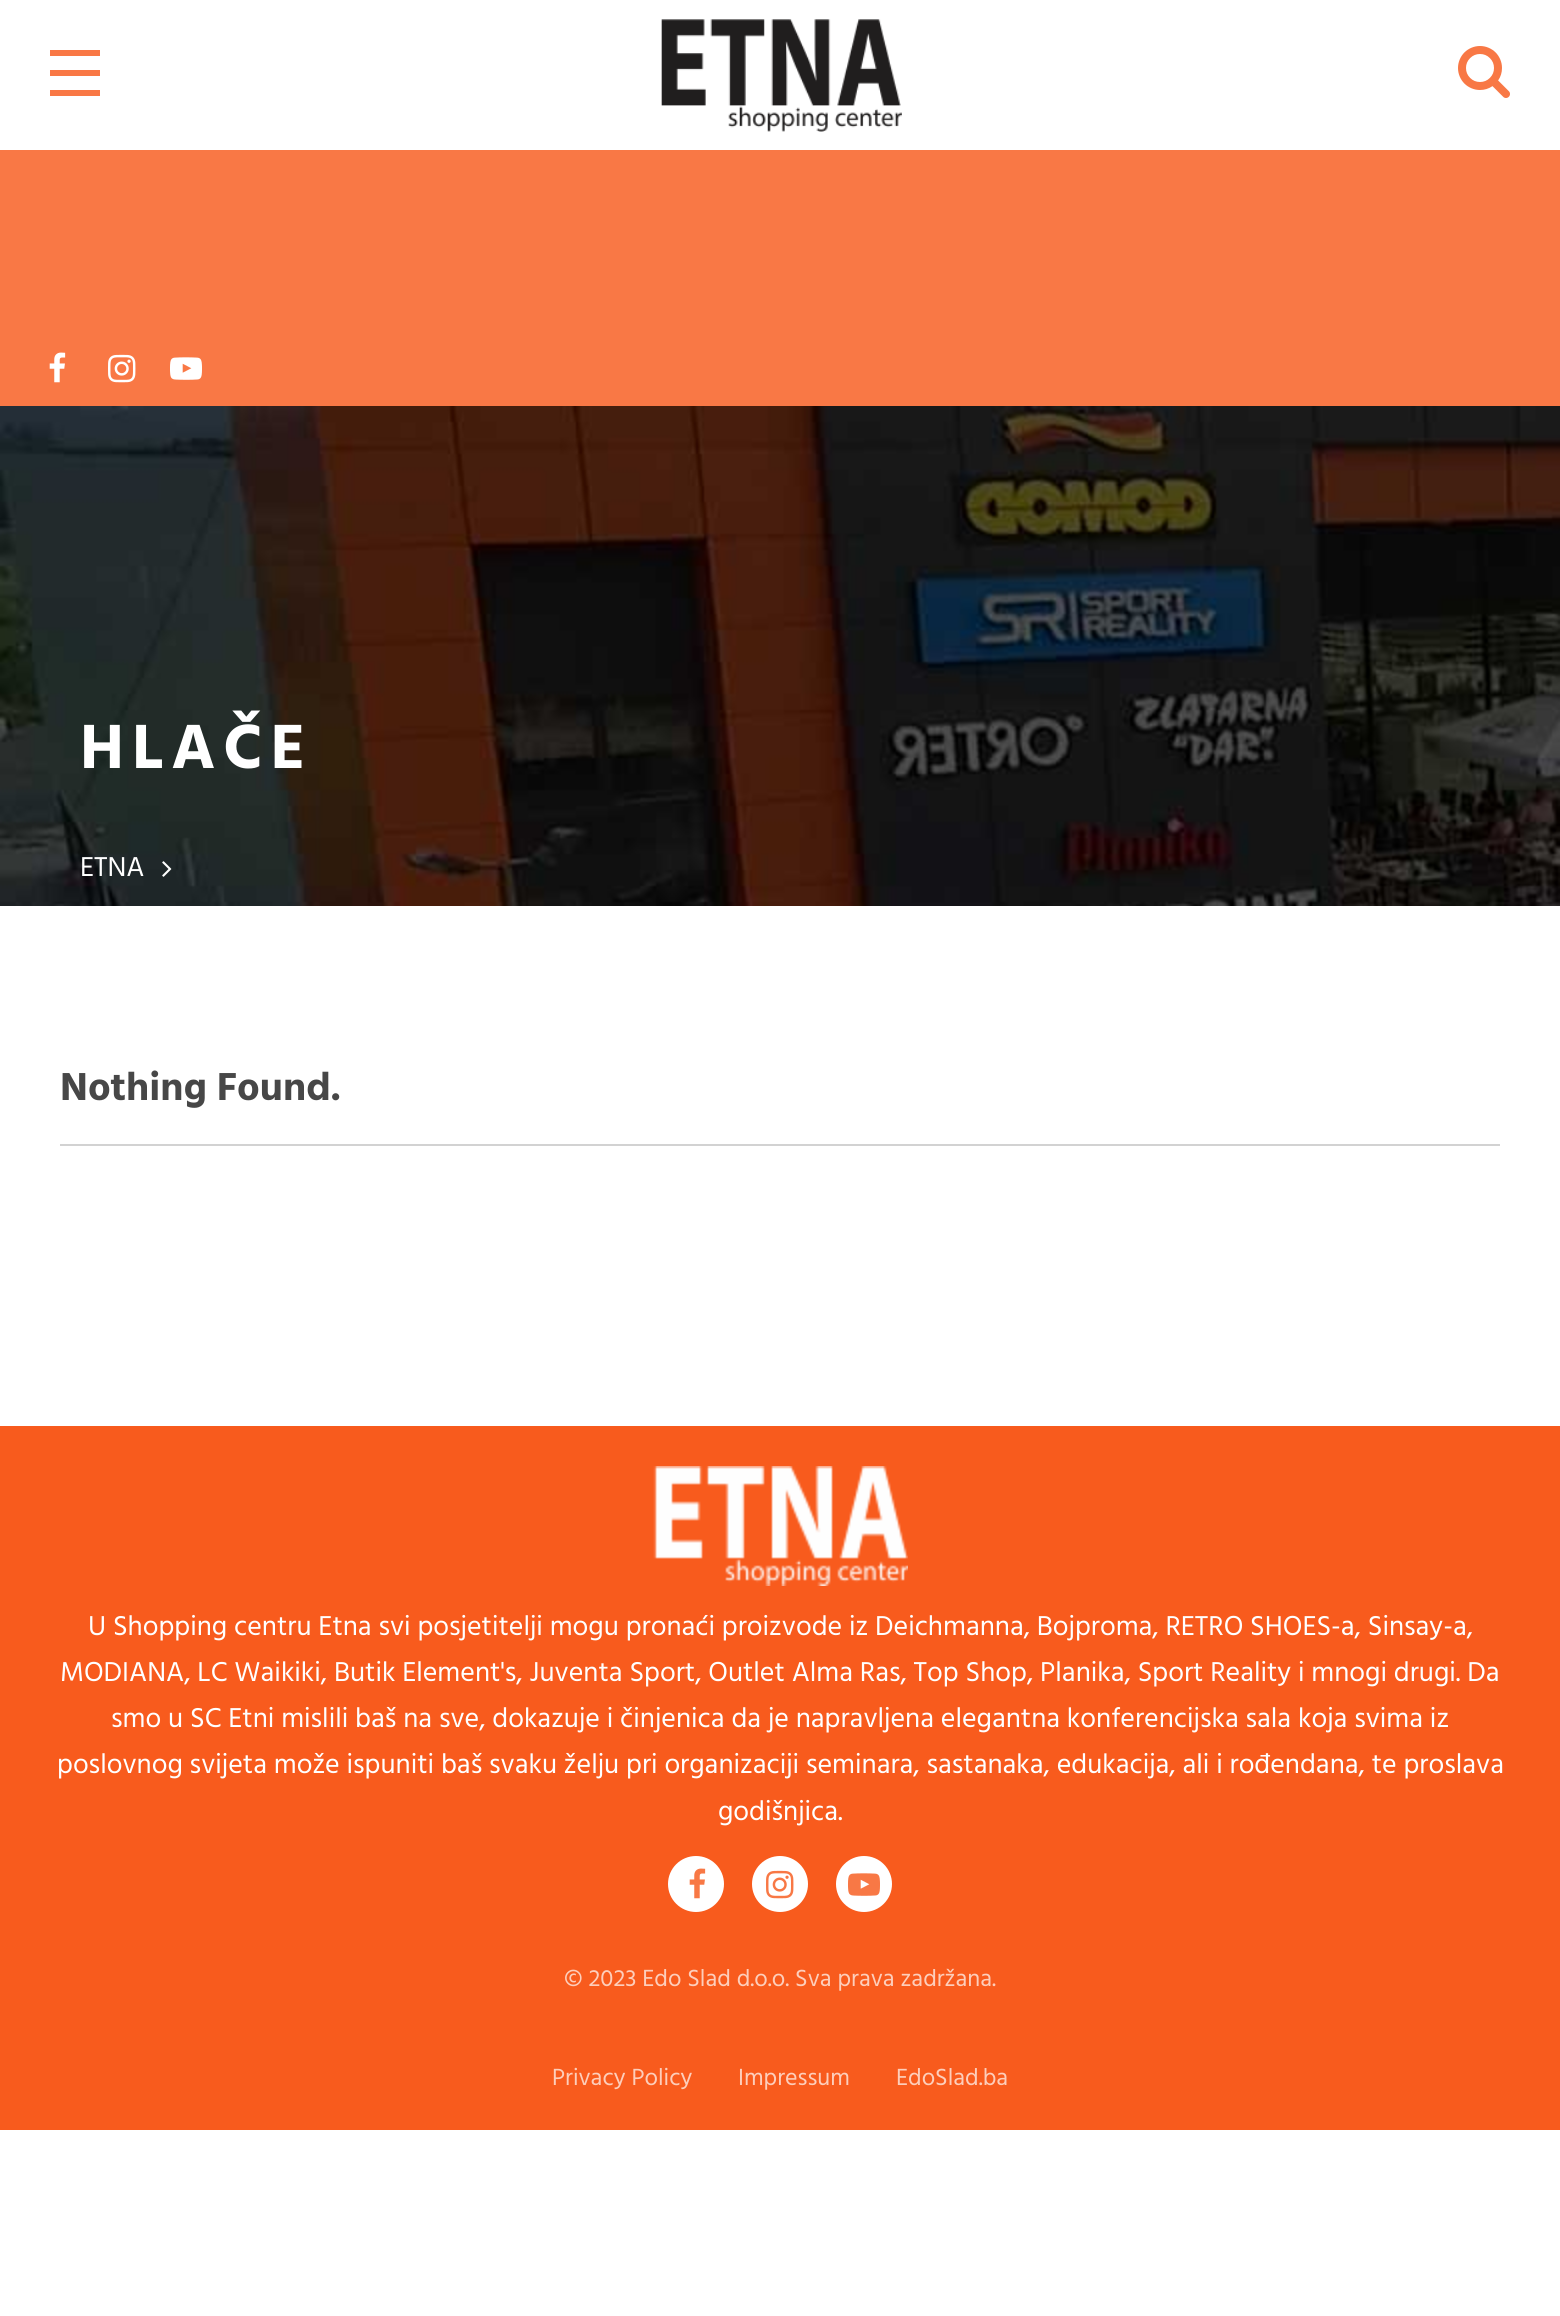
#include <cairo.h>
#include <math.h>
#include <stddef.h>


static void spaced_text(cairo_t *cr, double x, double y, const char *s, double letter, double word) {
    cairo_move_to(cr, x, y);
    while (*s) {
        char ch[5] = {0};
        int n = 0;
        do ch[n++] = *s++; while ((*s & 0xC0) == 0x80);
        cairo_show_text(cr, ch);
        cairo_rel_move_to(cr, letter + word * (*ch == ' '), 0);
    }
}

static void picture(cairo_t *cr, const char *path, double x, double y, double w, double h) {
    cairo_surface_t *image = cairo_image_surface_create_from_png(path);
    cairo_save(cr);
    cairo_set_source_surface(cr, image, x, y);
    cairo_rectangle(cr, x, y, w, h);
    cairo_fill(cr);
    cairo_restore(cr);
    cairo_surface_destroy(image);
}

int main(void) {
    cairo_surface_t *surface = cairo_image_surface_create(CAIRO_FORMAT_RGB24, 1560, 2316);
    cairo_t *cr = cairo_create(surface);
    cairo_font_options_t *options = cairo_font_options_create();
    cairo_font_options_set_hint_metrics(options, CAIRO_HINT_METRICS_OFF);
    cairo_font_options_set_hint_style(options, CAIRO_HINT_STYLE_NONE);
    cairo_set_font_options(cr, options);
    cairo_set_miter_limit(cr, 4);
    cairo_set_source_rgb(cr, 1, 1, 1);
    cairo_paint(cr);
    cairo_set_source_rgb(cr, 0.973, 0.471, 0.271);
    cairo_rectangle(cr, 50, 50, 50, 6);
    cairo_fill(cr);
    cairo_rectangle(cr, 50, 70, 50, 6);
    cairo_fill(cr);
    cairo_rectangle(cr, 50, 90, 50, 6);
    cairo_fill(cr);
    picture(cr, "img1.png", 661, 19, 241, 113);
    picture(cr, "img2.png", 1458, 46, 52, 52);
    cairo_rectangle(cr, 0, 150, 1560, 256);
    cairo_fill(cr);
    picture(cr, "img3.png", 49, 352, 17, 31);
    picture(cr, "img4.png", 108, 354, 28, 29);
    picture(cr, "img5.png", 170, 357, 32, 23);
    picture(cr, "img6.png", 0, 406, 1560, 500);
    cairo_select_font_face(cr, "Hind", CAIRO_FONT_SLANT_NORMAL, CAIRO_FONT_WEIGHT_BOLD);
    cairo_set_font_size(cr, 64);
    cairo_set_source_rgb(cr, 1, 1, 1);
    spaced_text(cr, 80, 768, "HLAČE", 8, 0);
    cairo_select_font_face(cr, "Hind", CAIRO_FONT_SLANT_NORMAL, CAIRO_FONT_WEIGHT_NORMAL);
    cairo_set_font_size(cr, 28);
    cairo_move_to(cr, 80, 876);
    cairo_show_text(cr, "ETNA");
    picture(cr, "img7.png", 162, 861, 10, 16);
    cairo_set_source_rgb(cr, 0.824, 0.824, 0.824);
    cairo_rectangle(cr, 60, 1144, 1440, 2);
    cairo_fill(cr);
    cairo_select_font_face(cr, "Hind", CAIRO_FONT_SLANT_NORMAL, CAIRO_FONT_WEIGHT_BOLD);
    cairo_set_font_size(cr, 40);
    cairo_set_source_rgb(cr, 0.278, 0.278, 0.278);
    cairo_move_to(cr, 60, 1100);
    cairo_show_text(cr, "Nothing Found.");
    cairo_set_source_rgb(cr, 0.969, 0.357, 0.114);
    cairo_rectangle(cr, 0, 1426, 1560, 704);
    cairo_fill(cr);
    picture(cr, "img8.png", 653, 1466, 255, 120);
    cairo_select_font_face(cr, "Hind", CAIRO_FONT_SLANT_NORMAL, CAIRO_FONT_WEIGHT_NORMAL);
    cairo_set_font_size(cr, 28);
    cairo_set_source_rgb(cr, 1, 1, 1);
    cairo_move_to(cr, 88, 1635);
    cairo_show_text(cr, "U Shopping centru Etna svi posjetitelji mogu pronaći proizvode iz Deichmanna, Bojproma, RETRO SHOES-a, Sinsay-a,");
    cairo_move_to(cr, 60, 1681);
    cairo_show_text(cr, "MODIANA, LC Waikiki, Butik Element's, Juventa Sport, Outlet Alma Ras, Top Shop, Planika, Sport Reality i mnogi drugi. Da");
    cairo_move_to(cr, 111, 1727);
    cairo_show_text(cr, "smo u SC Etni mislili baš na sve, dokazuje i činjenica da je napravljena elegantna konferencijska sala koja svima iz");
    cairo_move_to(cr, 57, 1773);
    cairo_show_text(cr, "poslovnog svijeta može ispuniti baš svaku želju pri organizaciji seminara, sastanaka, edukacija, ali i rođendana, te proslava");
    cairo_move_to(cr, 718, 1820);
    cairo_show_text(cr, "godišnjica.");
    cairo_new_path(cr);
    cairo_arc(cr, 696, 1884, 28, 0, 2 * M_PI);
    cairo_fill(cr);
    picture(cr, "img9.png", 689, 1868, 17, 31);
    cairo_arc(cr, 780, 1884, 28, 0, 2 * M_PI);
    cairo_fill(cr);
    picture(cr, "img10.png", 766, 1870, 28, 29);
    cairo_arc(cr, 864, 1884, 28, 0, 2 * M_PI);
    cairo_fill(cr);
    picture(cr, "img11.png", 848, 1873, 32, 23);
    cairo_set_font_size(cr, 24);
    cairo_set_source_rgb(cr, 0.992, 0.808, 0.733);
    cairo_move_to(cr, 564, 1986);
    cairo_show_text(cr, "© 2023 Edo Slad d.o.o. Sva prava zadržana.");
    cairo_move_to(cr, 552, 2085);
    cairo_show_text(cr, "Privacy Policy");
    cairo_move_to(cr, 738, 2085);
    cairo_show_text(cr, "Impressum");
    cairo_move_to(cr, 896, 2085);
    cairo_show_text(cr, "EdoSlad.ba");
    cairo_surface_write_to_png(surface, "page.png");
    cairo_font_options_destroy(options);
    cairo_destroy(cr);
    cairo_surface_destroy(surface);
    return 0;
}
